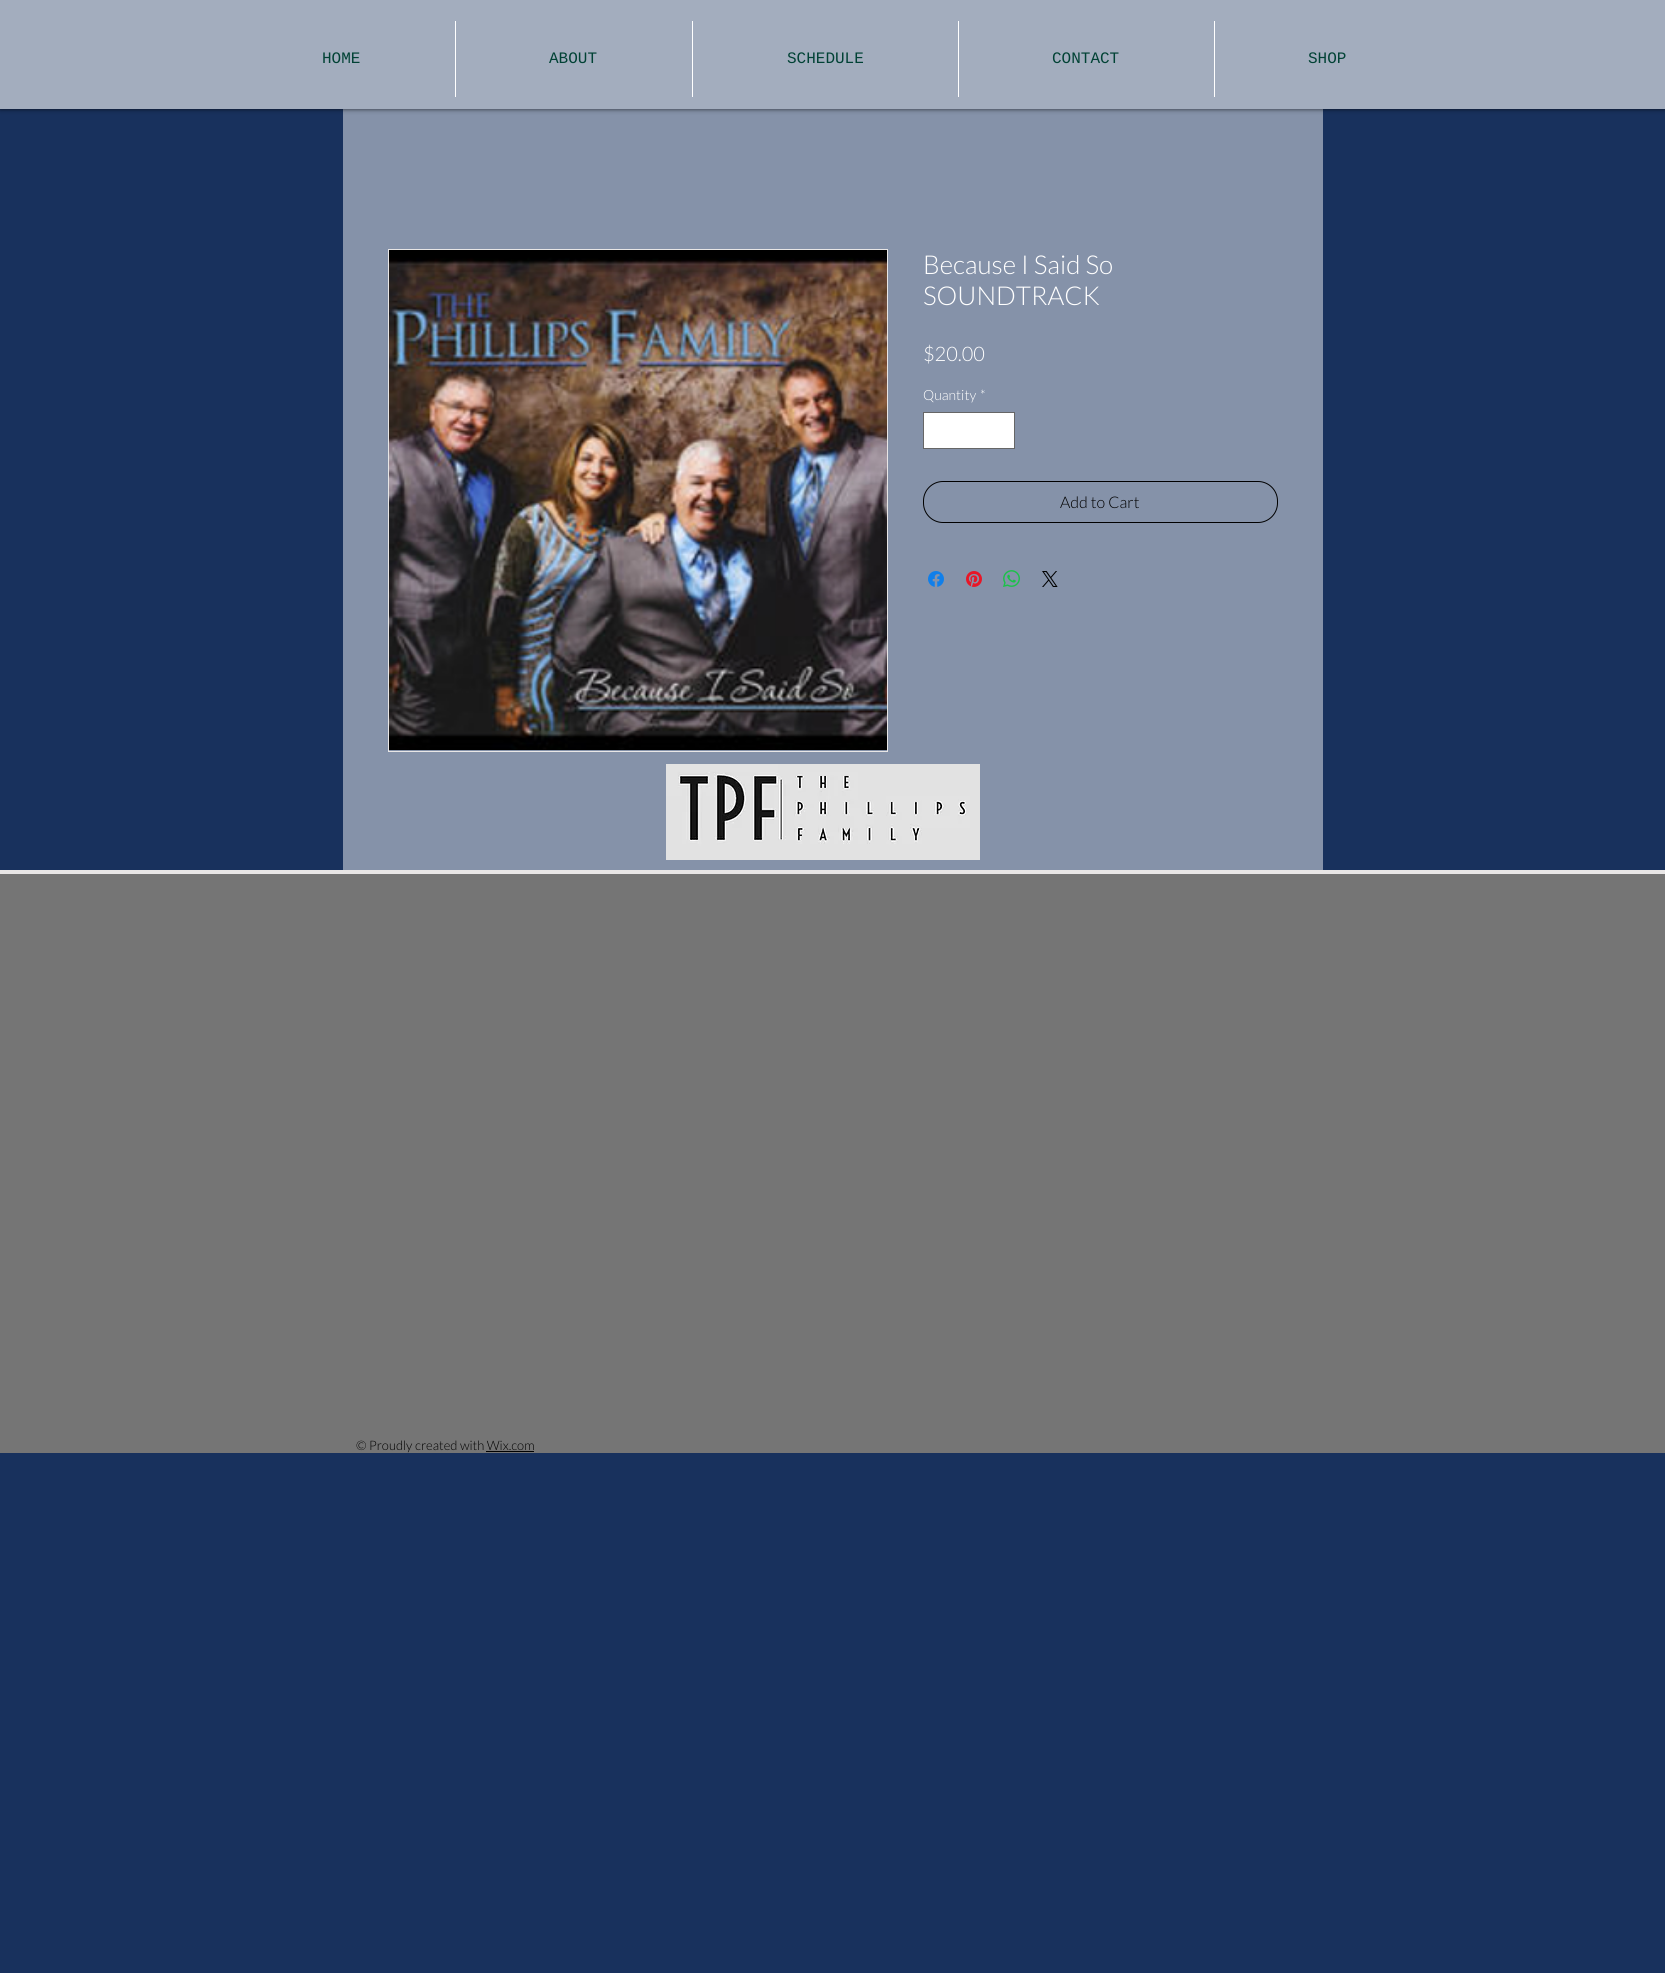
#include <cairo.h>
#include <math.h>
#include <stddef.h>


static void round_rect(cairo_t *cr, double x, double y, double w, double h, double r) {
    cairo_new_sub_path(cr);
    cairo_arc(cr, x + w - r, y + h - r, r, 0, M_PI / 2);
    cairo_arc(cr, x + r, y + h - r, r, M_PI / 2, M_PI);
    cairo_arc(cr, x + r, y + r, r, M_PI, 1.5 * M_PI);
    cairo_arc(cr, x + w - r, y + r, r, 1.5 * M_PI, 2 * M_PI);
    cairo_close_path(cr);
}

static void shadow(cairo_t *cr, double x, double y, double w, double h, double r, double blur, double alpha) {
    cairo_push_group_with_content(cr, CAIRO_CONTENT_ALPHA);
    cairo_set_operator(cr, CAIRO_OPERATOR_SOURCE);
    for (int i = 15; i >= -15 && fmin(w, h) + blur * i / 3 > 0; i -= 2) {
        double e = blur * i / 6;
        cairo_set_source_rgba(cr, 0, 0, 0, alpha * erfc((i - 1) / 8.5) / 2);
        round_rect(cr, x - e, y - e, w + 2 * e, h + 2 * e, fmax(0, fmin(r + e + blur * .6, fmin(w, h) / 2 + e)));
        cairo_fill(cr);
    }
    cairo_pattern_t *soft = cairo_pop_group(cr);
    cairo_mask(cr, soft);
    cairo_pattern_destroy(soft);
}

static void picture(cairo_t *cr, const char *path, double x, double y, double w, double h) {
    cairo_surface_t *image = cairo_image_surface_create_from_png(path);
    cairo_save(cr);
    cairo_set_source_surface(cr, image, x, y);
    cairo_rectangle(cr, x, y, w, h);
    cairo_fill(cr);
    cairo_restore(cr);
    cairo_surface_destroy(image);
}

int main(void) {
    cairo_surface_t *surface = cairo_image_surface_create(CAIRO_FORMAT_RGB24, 1665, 1973);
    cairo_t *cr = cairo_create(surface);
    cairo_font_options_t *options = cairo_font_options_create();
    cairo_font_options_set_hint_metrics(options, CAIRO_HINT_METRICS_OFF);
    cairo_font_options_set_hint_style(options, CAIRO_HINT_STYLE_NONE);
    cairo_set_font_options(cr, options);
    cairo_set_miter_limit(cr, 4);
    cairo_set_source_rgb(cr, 0.094, 0.192, 0.365);
    cairo_paint(cr);
    cairo_set_source_rgb(cr, 0.522, 0.573, 0.663);
    cairo_rectangle(cr, 343, 109, 980, 761);
    cairo_fill(cr);
    cairo_set_source_rgb(cr, 0, 0, 0);
    shadow(cr, 0, 0, 1665, 109, 0, 2.5, 0.7);
    cairo_set_source_rgb(cr, 0.639, 0.678, 0.745);
    cairo_rectangle(cr, 0, 0, 1665, 109);
    cairo_fill(cr);
    cairo_select_font_face(cr, "Liberation Mono", CAIRO_FONT_SLANT_NORMAL, CAIRO_FONT_WEIGHT_NORMAL);
    cairo_set_font_size(cr, 16);
    cairo_set_source_rgb(cr, 0.004, 0.259, 0.208);
    cairo_move_to(cr, 322, 63);
    cairo_show_text(cr, "HOME");
    cairo_set_source_rgb(cr, 1, 1, 1);
    cairo_rectangle(cr, 455, 21, 1, 76);
    cairo_fill(cr);
    cairo_set_source_rgb(cr, 0.004, 0.259, 0.208);
    cairo_move_to(cr, 549, 63);
    cairo_show_text(cr, "ABOUT");
    cairo_set_source_rgb(cr, 1, 1, 1);
    cairo_rectangle(cr, 692, 21, 1, 76);
    cairo_fill(cr);
    cairo_set_source_rgb(cr, 0.004, 0.259, 0.208);
    cairo_move_to(cr, 787, 63);
    cairo_show_text(cr, "SCHEDULE");
    cairo_set_source_rgb(cr, 1, 1, 1);
    cairo_rectangle(cr, 958, 21, 1, 76);
    cairo_fill(cr);
    cairo_set_source_rgb(cr, 0.004, 0.259, 0.208);
    cairo_move_to(cr, 1052, 63);
    cairo_show_text(cr, "CONTACT");
    cairo_set_source_rgb(cr, 1, 1, 1);
    cairo_rectangle(cr, 1214, 21, 1, 76);
    cairo_fill(cr);
    cairo_set_source_rgb(cr, 0.004, 0.259, 0.208);
    cairo_move_to(cr, 1308, 63);
    cairo_show_text(cr, "SHOP");
    cairo_rectangle(cr, 388.5, 249.5, 499, 502);
    cairo_set_source_rgb(cr, 0.91, 0.902, 0.902);
    cairo_set_line_width(cr, 1);
    cairo_stroke(cr);
    picture(cr, "img1.png", 389, 250, 498, 500);
    cairo_select_font_face(cr, "Lato Light", CAIRO_FONT_SLANT_NORMAL, CAIRO_FONT_WEIGHT_NORMAL);
    cairo_set_font_size(cr, 26);
    cairo_set_source_rgb(cr, 1, 1, 1);
    cairo_move_to(cr, 923, 274);
    cairo_show_text(cr, "Because I Said So");
    cairo_move_to(cr, 923, 305);
    cairo_show_text(cr, "SOUNDTRACK");
    cairo_set_font_size(cr, 20);
    cairo_move_to(cr, 923, 361);
    cairo_show_text(cr, "$20.00");
    cairo_set_font_size(cr, 14);
    cairo_move_to(cr, 923, 400);
    cairo_show_text(cr, "Quantity");
    cairo_move_to(cr, 980, 400);
    cairo_show_text(cr, "*");
    cairo_rectangle(cr, 923.5, 412.5, 91, 36);
    cairo_fill_preserve(cr);
    cairo_set_source_rgb(cr, 0.4, 0.4, 0.4);
    cairo_stroke(cr);
    round_rect(cr, 923.5, 481.5, 354, 41, 19.5);
    cairo_set_source_rgb(cr, 0, 0, 0);
    cairo_stroke(cr);
    cairo_set_font_size(cr, 16);
    cairo_move_to(cr, 1060, 508);
    cairo_show_text(cr, "Add to Cart");
    picture(cr, "img2.png", 928, 571, 16, 16);
    picture(cr, "img3.png", 966, 571, 16, 16);
    picture(cr, "img4.png", 1003, 570, 17, 17);
    picture(cr, "img5.png", 1042, 571, 16, 16);
    picture(cr, "img6.png", 666, 764, 314, 96);
    cairo_set_source_rgb(cr, 0.459, 0.459, 0.459);
    cairo_rectangle(cr, 0, 874, 1665, 579);
    cairo_fill(cr);
    cairo_set_source_rgb(cr, 0.91, 0.902, 0.902);
    cairo_rectangle(cr, 0, 870, 1665, 4);
    cairo_fill(cr);
    cairo_set_font_size(cr, 13);
    cairo_set_source_rgb(cr, 0, 0, 0);
    cairo_move_to(cr, 356, 1450);
    cairo_show_text(cr, "© Proudly created with Wix.com");
    cairo_rectangle(cr, 486, 1451, 48, 1);
    cairo_fill(cr);
    cairo_surface_write_to_png(surface, "page.png");
    cairo_font_options_destroy(options);
    cairo_destroy(cr);
    cairo_surface_destroy(surface);
    return 0;
}
